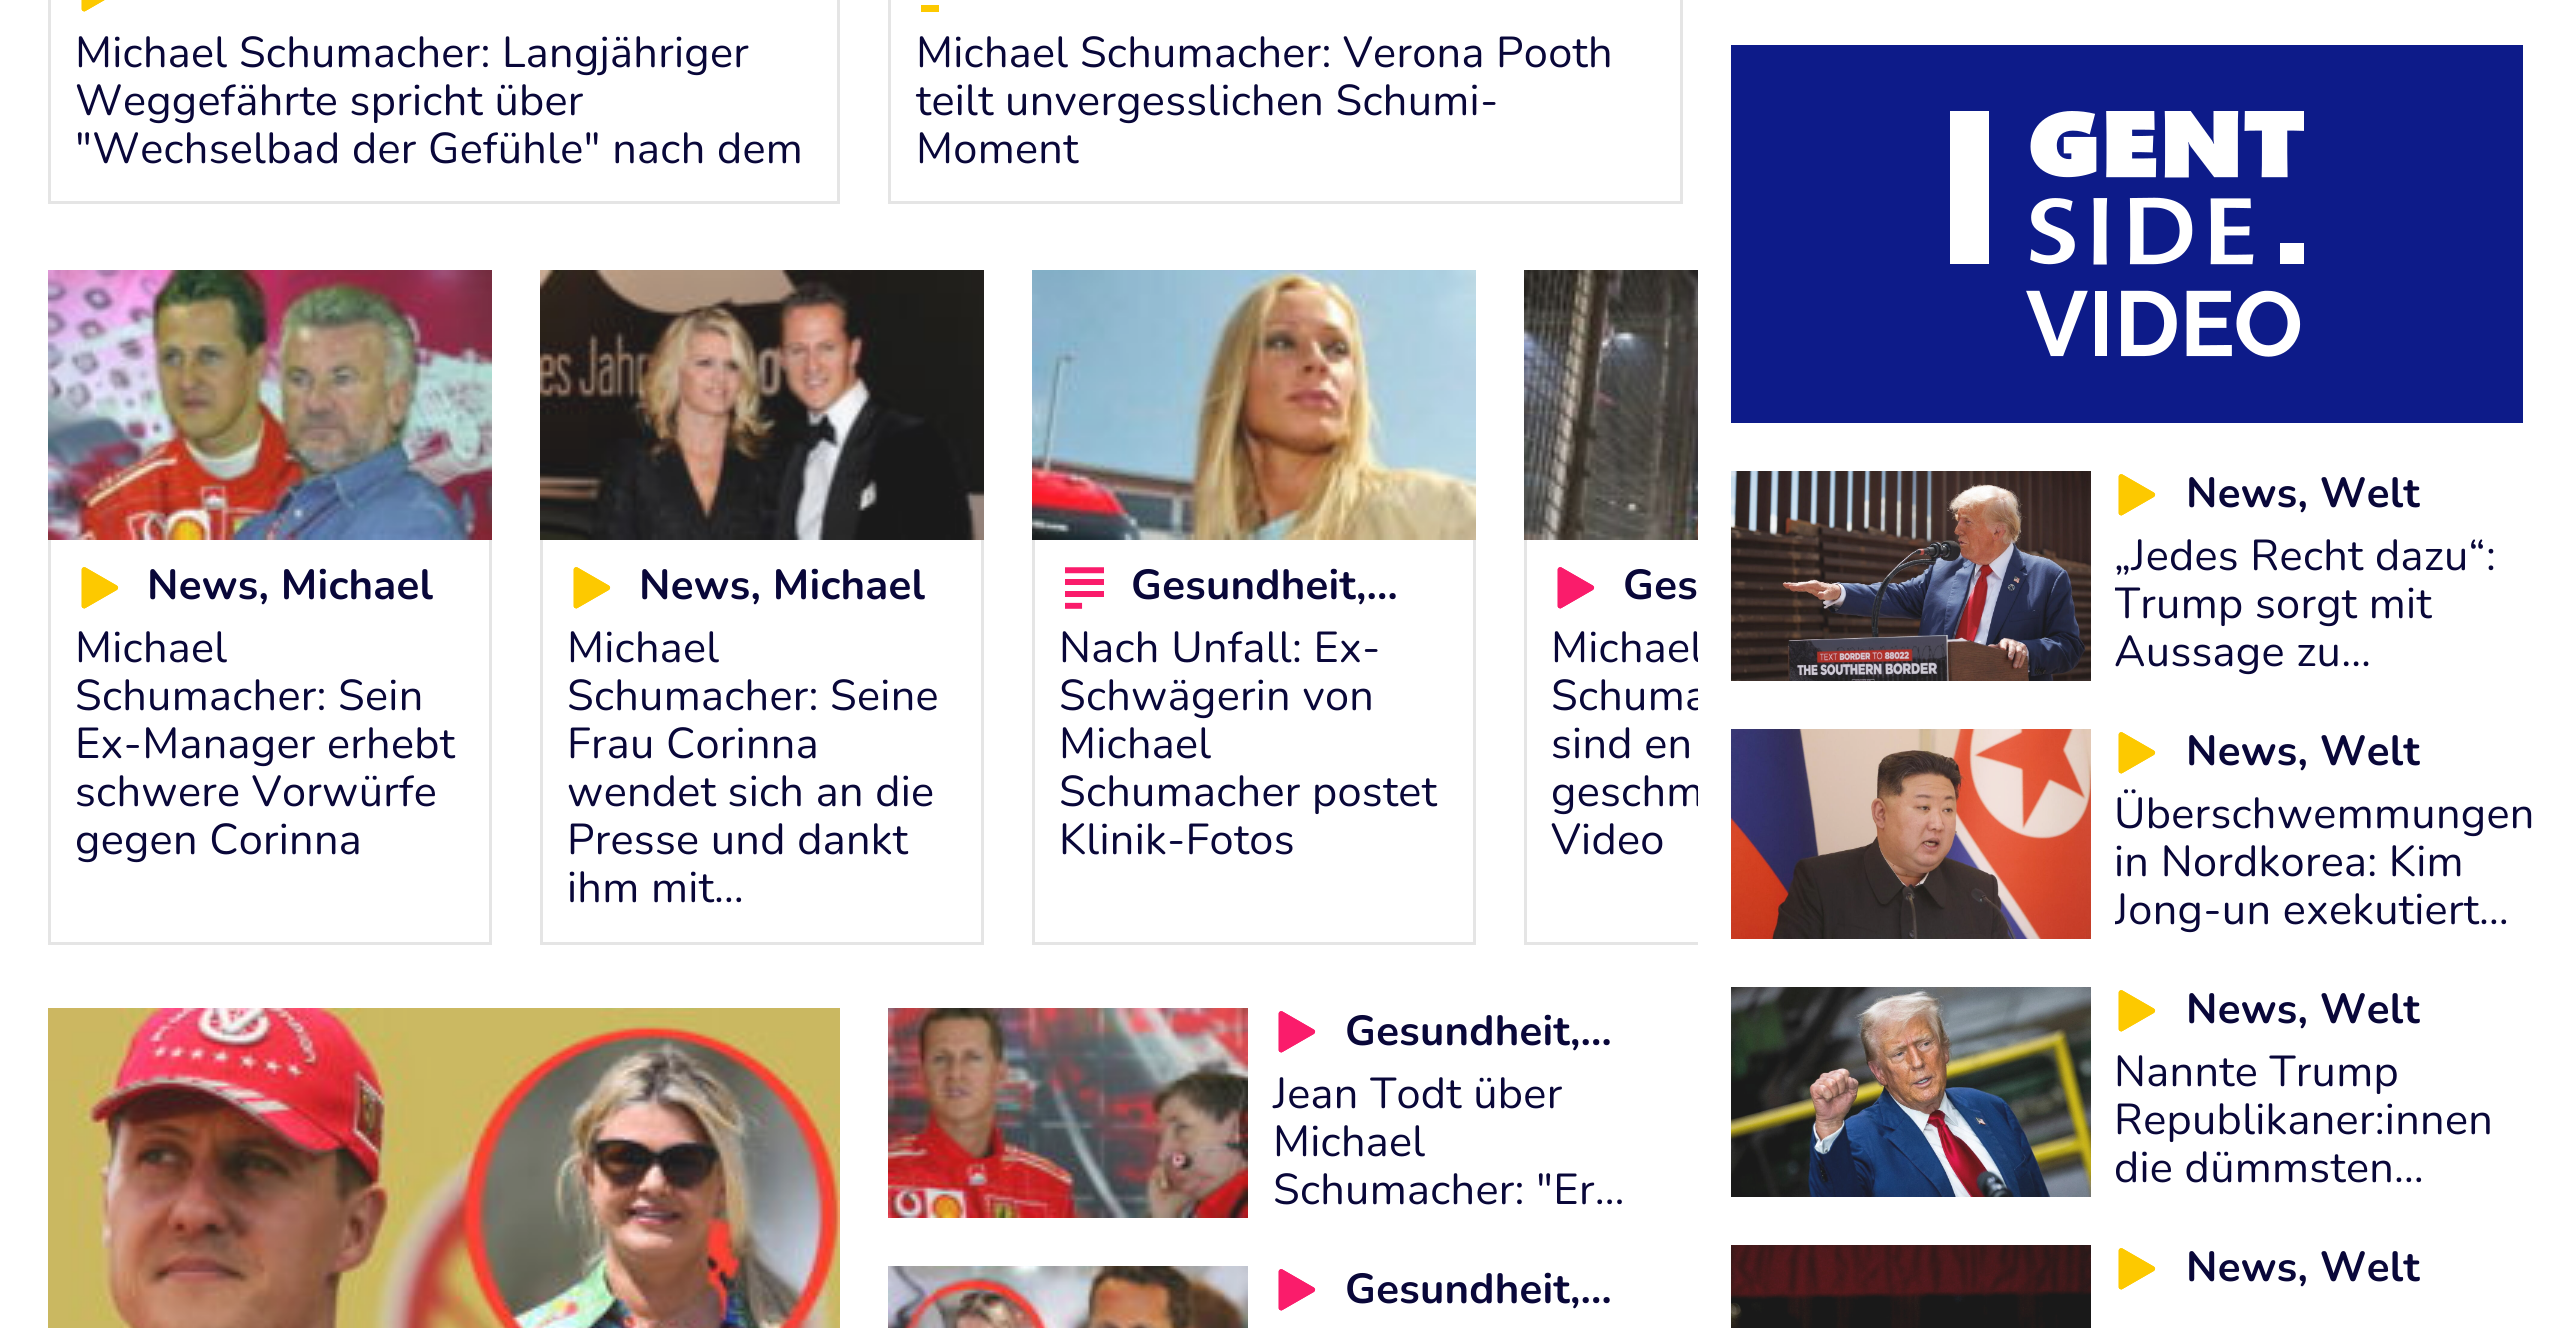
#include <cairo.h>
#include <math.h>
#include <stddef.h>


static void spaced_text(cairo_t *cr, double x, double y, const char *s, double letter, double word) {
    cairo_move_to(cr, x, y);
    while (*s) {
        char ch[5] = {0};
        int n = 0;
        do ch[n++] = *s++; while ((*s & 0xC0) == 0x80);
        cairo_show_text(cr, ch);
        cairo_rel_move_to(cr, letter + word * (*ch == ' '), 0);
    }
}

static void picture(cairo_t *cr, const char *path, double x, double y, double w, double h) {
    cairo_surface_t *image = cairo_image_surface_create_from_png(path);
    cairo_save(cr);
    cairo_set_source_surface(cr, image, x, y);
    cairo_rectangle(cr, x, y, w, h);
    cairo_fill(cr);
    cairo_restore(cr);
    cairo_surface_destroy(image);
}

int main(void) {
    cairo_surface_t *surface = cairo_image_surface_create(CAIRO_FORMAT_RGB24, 2569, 1328);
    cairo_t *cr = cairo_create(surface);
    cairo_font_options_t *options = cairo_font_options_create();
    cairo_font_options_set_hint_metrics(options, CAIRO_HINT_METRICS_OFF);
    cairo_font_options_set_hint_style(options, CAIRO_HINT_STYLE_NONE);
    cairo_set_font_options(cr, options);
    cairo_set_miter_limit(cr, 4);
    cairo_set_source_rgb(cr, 1, 1, 1);
    cairo_paint(cr);
    cairo_set_source_rgb(cr, 0.898, 0.898, 0.898);
    cairo_rectangle(cr, 837, 0, 3, 204);
    cairo_fill(cr);
    cairo_rectangle(cr, 48, 201, 792, 3);
    cairo_fill(cr);
    cairo_rectangle(cr, 48, 0, 3, 204);
    cairo_fill(cr);
    picture(cr, "img1.png", 81, 0, 24, 12);
    cairo_select_font_face(cr, "Nunito", CAIRO_FONT_SLANT_NORMAL, CAIRO_FONT_WEIGHT_NORMAL);
    cairo_set_font_size(cr, 43.25);
    cairo_set_source_rgb(cr, 0.039, 0.031, 0.224);
    spaced_text(cr, 75, 67, "Michael Schumacher: Langjähriger", 0.3, 0);
    spaced_text(cr, 75, 115, "Weggefährte spricht über", 0.3, 0);
    spaced_text(cr, 75, 163, "\"Wechselbad der Gefühle\" nach dem", 0.3, 0);
    cairo_set_source_rgb(cr, 0.898, 0.898, 0.898);
    cairo_rectangle(cr, 1680, 0, 3, 204);
    cairo_fill(cr);
    cairo_rectangle(cr, 888, 201, 795, 3);
    cairo_fill(cr);
    cairo_rectangle(cr, 888, 0, 3, 204);
    cairo_fill(cr);
    cairo_set_source_rgb(cr, 0.992, 0.788, 0);
    cairo_rectangle(cr, 921, 5, 18, 7);
    cairo_fill(cr);
    cairo_set_source_rgb(cr, 0.039, 0.031, 0.224);
    spaced_text(cr, 916, 67, "Michael Schumacher: Verona Pooth", 0.3, 0);
    spaced_text(cr, 916, 115, "teilt unvergesslichen Schumi-", 0.3, 0);
    spaced_text(cr, 916, 163, "Moment", 0.3, 0);
    picture(cr, "img2.png", 48, 270, 444, 270);
    cairo_set_source_rgb(cr, 0.898, 0.898, 0.898);
    cairo_rectangle(cr, 489, 540, 3, 405);
    cairo_fill(cr);
    cairo_rectangle(cr, 48, 942, 444, 3);
    cairo_fill(cr);
    cairo_rectangle(cr, 48, 540, 3, 405);
    cairo_fill(cr);
    picture(cr, "img3.png", 81, 567, 38, 42);
    cairo_select_font_face(cr, "Nunito", CAIRO_FONT_SLANT_NORMAL, CAIRO_FONT_WEIGHT_BOLD);
    cairo_set_font_size(cr, 42);
    cairo_set_source_rgb(cr, 0.039, 0.031, 0.224);
    spaced_text(cr, 147, 599, "News, Michael", 0.25, 0);
    cairo_select_font_face(cr, "Nunito", CAIRO_FONT_SLANT_NORMAL, CAIRO_FONT_WEIGHT_NORMAL);
    cairo_set_font_size(cr, 43.25);
    spaced_text(cr, 75, 662, "Michael", 0.3, 0);
    spaced_text(cr, 75, 710, "Schumacher: Sein", 0.3, 0);
    spaced_text(cr, 75, 758, "Ex-Manager erhebt", 0.3, 0);
    spaced_text(cr, 75, 806, "schwere Vorwürfe", 0.3, 0);
    spaced_text(cr, 75, 854, "gegen Corinna", 0.3, 0);
    picture(cr, "img4.png", 540, 270, 444, 270);
    cairo_set_source_rgb(cr, 0.898, 0.898, 0.898);
    cairo_rectangle(cr, 981, 540, 3, 405);
    cairo_fill(cr);
    cairo_rectangle(cr, 540, 942, 444, 3);
    cairo_fill(cr);
    cairo_rectangle(cr, 540, 540, 3, 405);
    cairo_fill(cr);
    picture(cr, "img3.png", 573, 567, 38, 42);
    cairo_select_font_face(cr, "Nunito", CAIRO_FONT_SLANT_NORMAL, CAIRO_FONT_WEIGHT_BOLD);
    cairo_set_font_size(cr, 42);
    cairo_set_source_rgb(cr, 0.039, 0.031, 0.224);
    spaced_text(cr, 639, 599, "News, Michael", 0.25, 0);
    cairo_select_font_face(cr, "Nunito", CAIRO_FONT_SLANT_NORMAL, CAIRO_FONT_WEIGHT_NORMAL);
    cairo_set_font_size(cr, 43.25);
    spaced_text(cr, 567, 662, "Michael", 0.3, 0);
    spaced_text(cr, 567, 710, "Schumacher: Seine", 0.3, 0);
    spaced_text(cr, 567, 758, "Frau Corinna", 0.3, 0);
    spaced_text(cr, 567, 806, "wendet sich an die", 0.3, 0);
    spaced_text(cr, 567, 854, "Presse und dankt", 0.3, 0);
    spaced_text(cr, 567, 902, "ihm mit…", 0.3, 0);
    picture(cr, "img5.png", 1032, 270, 444, 270);
    cairo_set_source_rgb(cr, 0.898, 0.898, 0.898);
    cairo_rectangle(cr, 1473, 540, 3, 405);
    cairo_fill(cr);
    cairo_rectangle(cr, 1032, 942, 444, 3);
    cairo_fill(cr);
    cairo_rectangle(cr, 1032, 540, 3, 405);
    cairo_fill(cr);
    picture(cr, "img6.png", 1065, 567, 39, 42);
    cairo_select_font_face(cr, "Nunito", CAIRO_FONT_SLANT_NORMAL, CAIRO_FONT_WEIGHT_BOLD);
    cairo_set_font_size(cr, 42);
    cairo_set_source_rgb(cr, 0.039, 0.031, 0.224);
    spaced_text(cr, 1131, 599, "Gesundheit,…", 0.25, 0);
    cairo_select_font_face(cr, "Nunito", CAIRO_FONT_SLANT_NORMAL, CAIRO_FONT_WEIGHT_NORMAL);
    cairo_set_font_size(cr, 43.25);
    spaced_text(cr, 1059, 662, "Nach Unfall: Ex-", 0.3, 0);
    spaced_text(cr, 1059, 710, "Schwägerin von", 0.3, 0);
    spaced_text(cr, 1059, 758, "Michael", 0.3, 0);
    spaced_text(cr, 1059, 806, "Schumacher postet", 0.3, 0);
    spaced_text(cr, 1059, 854, "Klinik-Fotos", 0.3, 0);
    picture(cr, "img7.png", 1524, 270, 174, 270);
    cairo_set_source_rgb(cr, 0.898, 0.898, 0.898);
    cairo_rectangle(cr, 1524, 942, 174, 3);
    cairo_fill(cr);
    cairo_rectangle(cr, 1524, 540, 3, 405);
    cairo_fill(cr);
    picture(cr, "img8.png", 1557, 567, 38, 42);
    cairo_select_font_face(cr, "Nunito", CAIRO_FONT_SLANT_NORMAL, CAIRO_FONT_WEIGHT_BOLD);
    cairo_set_font_size(cr, 42);
    cairo_set_source_rgb(cr, 0.039, 0.031, 0.224);
    spaced_text(cr, 1623, 599, "Ges", 0.25, 0);
    cairo_save(cr);
    cairo_rectangle(cr, 1551, 624, 147, 294);
    cairo_clip(cr);
    cairo_select_font_face(cr, "Nunito", CAIRO_FONT_SLANT_NORMAL, CAIRO_FONT_WEIGHT_NORMAL);
    cairo_set_font_size(cr, 43.25);
    spaced_text(cr, 1551, 662, "Michael", 0.3, 0);
    spaced_text(cr, 1551, 710, "Schuma", 0.3, 0);
    cairo_restore(cr);
    cairo_select_font_face(cr, "Nunito", CAIRO_FONT_SLANT_NORMAL, CAIRO_FONT_WEIGHT_NORMAL);
    cairo_set_font_size(cr, 43.25);
    spaced_text(cr, 1551, 758, "sind en", 0.3, 0);
    cairo_save(cr);
    cairo_rectangle(cr, 1551, 624, 147, 294);
    cairo_clip(cr);
    spaced_text(cr, 1551, 806, "geschm", 0.3, 0);
    cairo_restore(cr);
    spaced_text(cr, 1551, 854, "Video", 0.3, 0);
    picture(cr, "img9.png", 48, 1008, 792, 320);
    picture(cr, "img10.png", 888, 1008, 360, 210);
    picture(cr, "img8.png", 1278, 1011, 38, 42);
    cairo_select_font_face(cr, "Nunito", CAIRO_FONT_SLANT_NORMAL, CAIRO_FONT_WEIGHT_BOLD);
    cairo_set_font_size(cr, 42);
    spaced_text(cr, 1345, 1045, "Gesundheit,…", 0.25, 0);
    cairo_select_font_face(cr, "Nunito", CAIRO_FONT_SLANT_NORMAL, CAIRO_FONT_WEIGHT_NORMAL);
    cairo_set_font_size(cr, 43.25);
    spaced_text(cr, 1273, 1108, "Jean Todt über", 0.3, 0);
    spaced_text(cr, 1273, 1156, "Michael", 0.3, 0);
    spaced_text(cr, 1273, 1204, "Schumacher: \"Er…", 0.3, 0);
    picture(cr, "img11.png", 888, 1266, 360, 62);
    picture(cr, "img8.png", 1278, 1269, 38, 42);
    cairo_select_font_face(cr, "Nunito", CAIRO_FONT_SLANT_NORMAL, CAIRO_FONT_WEIGHT_BOLD);
    cairo_set_font_size(cr, 42);
    spaced_text(cr, 1345, 1303, "Gesundheit,…", 0.25, 0);
    cairo_set_source_rgb(cr, 0.051, 0.106, 0.537);
    cairo_rectangle(cr, 1731, 45, 792, 378);
    cairo_fill(cr);
    picture(cr, "img12.png", 1950, 111, 354, 246);
    picture(cr, "img13.png", 1731, 471, 360, 210);
    picture(cr, "img3.png", 2118, 474, 38, 42);
    cairo_set_source_rgb(cr, 0.039, 0.031, 0.224);
    spaced_text(cr, 2186, 507, "News, Welt", 0.25, 0);
    cairo_select_font_face(cr, "Nunito", CAIRO_FONT_SLANT_NORMAL, CAIRO_FONT_WEIGHT_NORMAL);
    cairo_set_font_size(cr, 43.25);
    spaced_text(cr, 2114, 570, "„Jedes Recht dazu“:", 0.3, 0);
    cairo_save(cr);
    cairo_rectangle(cr, 2115, 531, 408, 144);
    cairo_clip(cr);
    spaced_text(cr, 2114, 618, "Trump sorgt mit", 0.3, 0);
    cairo_restore(cr);
    spaced_text(cr, 2114, 666, "Aussage zu…", 0.3, 0);
    picture(cr, "img14.png", 1731, 729, 360, 210);
    picture(cr, "img3.png", 2118, 732, 38, 42);
    cairo_select_font_face(cr, "Nunito", CAIRO_FONT_SLANT_NORMAL, CAIRO_FONT_WEIGHT_BOLD);
    cairo_set_font_size(cr, 42);
    spaced_text(cr, 2186, 765, "News, Welt", 0.25, 0);
    cairo_select_font_face(cr, "Nunito", CAIRO_FONT_SLANT_NORMAL, CAIRO_FONT_WEIGHT_NORMAL);
    cairo_set_font_size(cr, 43.25);
    spaced_text(cr, 2114, 828, "Überschwemmungen", 0.3, 0);
    spaced_text(cr, 2114, 876, "in Nordkorea: Kim", 0.3, 0);
    cairo_save(cr);
    cairo_rectangle(cr, 2115, 789, 420, 144);
    cairo_clip(cr);
    spaced_text(cr, 2114, 924, "Jong-un exekutiert…", 0.3, 0);
    cairo_restore(cr);
    picture(cr, "img15.png", 1731, 987, 360, 210);
    picture(cr, "img3.png", 2118, 990, 38, 42);
    cairo_select_font_face(cr, "Nunito", CAIRO_FONT_SLANT_NORMAL, CAIRO_FONT_WEIGHT_BOLD);
    cairo_set_font_size(cr, 42);
    spaced_text(cr, 2186, 1023, "News, Welt", 0.25, 0);
    cairo_select_font_face(cr, "Nunito", CAIRO_FONT_SLANT_NORMAL, CAIRO_FONT_WEIGHT_NORMAL);
    cairo_set_font_size(cr, 43.25);
    spaced_text(cr, 2114, 1086, "Nannte Trump", 0.3, 0);
    spaced_text(cr, 2114, 1134, "Republikaner:innen", 0.3, 0);
    spaced_text(cr, 2114, 1182, "die dümmsten…", 0.3, 0);
    picture(cr, "img16.png", 1731, 1245, 360, 83);
    picture(cr, "img3.png", 2118, 1248, 38, 42);
    cairo_select_font_face(cr, "Nunito", CAIRO_FONT_SLANT_NORMAL, CAIRO_FONT_WEIGHT_BOLD);
    cairo_set_font_size(cr, 42);
    spaced_text(cr, 2186, 1281, "News, Welt", 0.25, 0);
    cairo_surface_write_to_png(surface, "page.png");
    cairo_font_options_destroy(options);
    cairo_destroy(cr);
    cairo_surface_destroy(surface);
    return 0;
}
